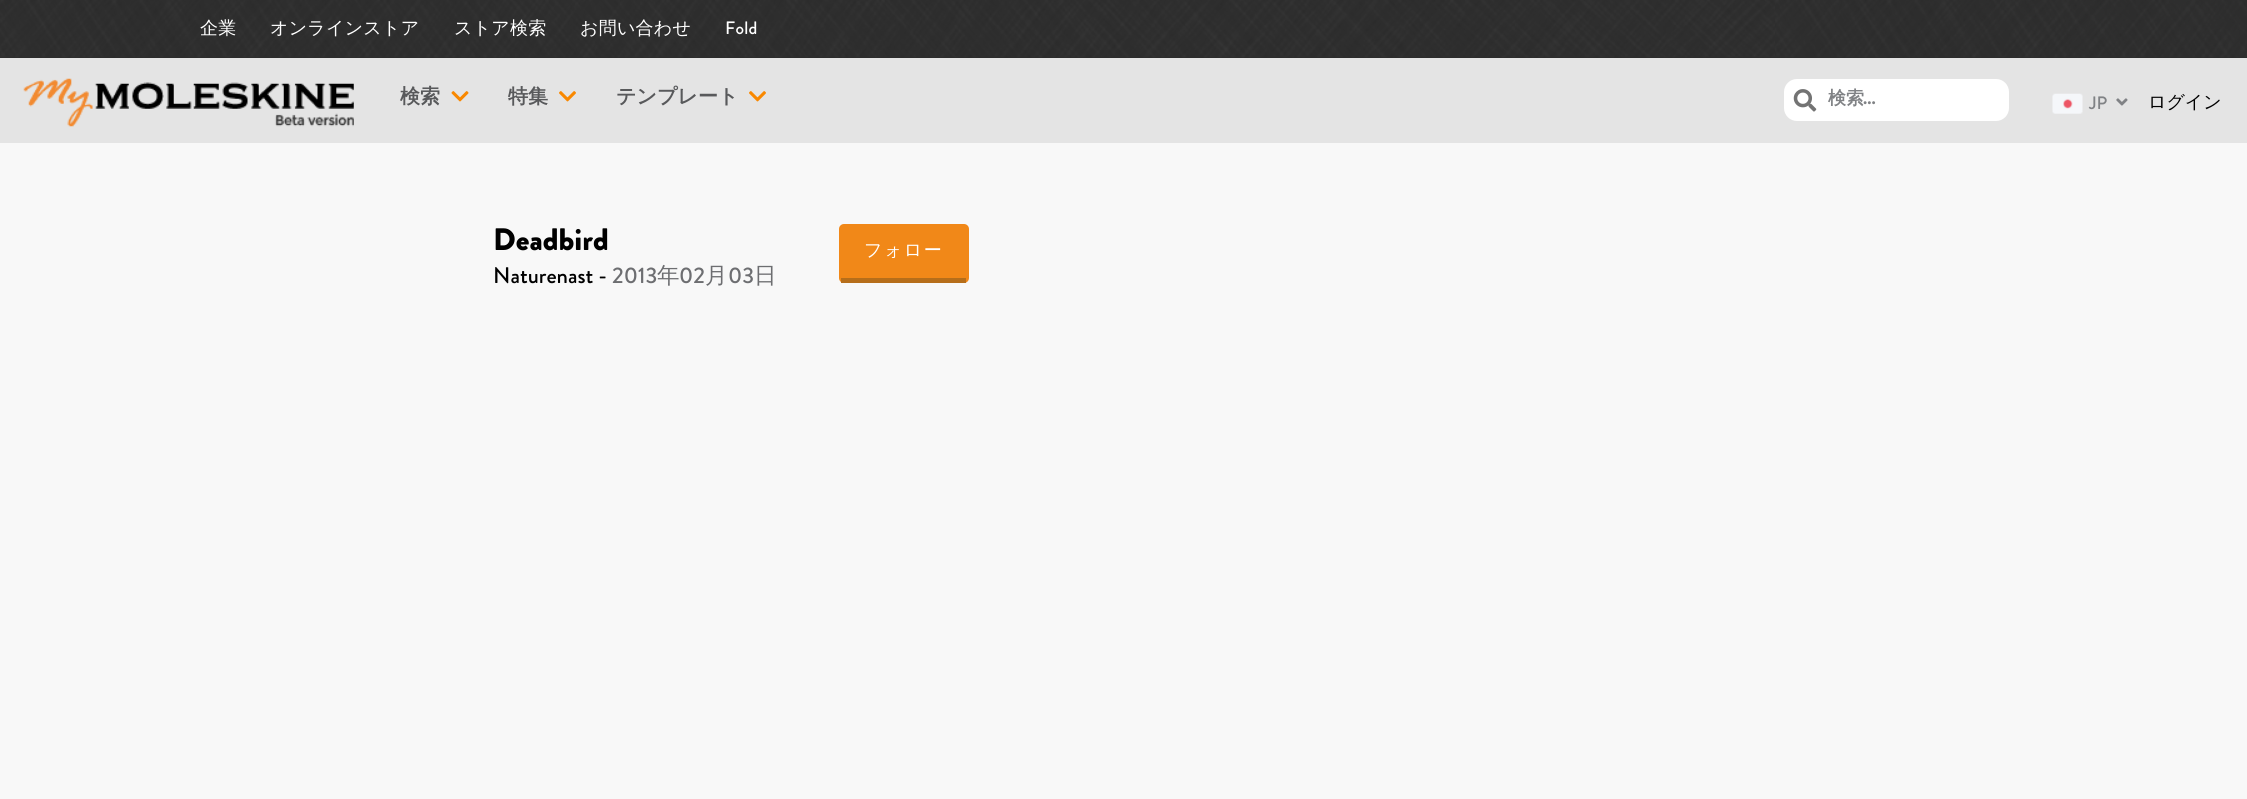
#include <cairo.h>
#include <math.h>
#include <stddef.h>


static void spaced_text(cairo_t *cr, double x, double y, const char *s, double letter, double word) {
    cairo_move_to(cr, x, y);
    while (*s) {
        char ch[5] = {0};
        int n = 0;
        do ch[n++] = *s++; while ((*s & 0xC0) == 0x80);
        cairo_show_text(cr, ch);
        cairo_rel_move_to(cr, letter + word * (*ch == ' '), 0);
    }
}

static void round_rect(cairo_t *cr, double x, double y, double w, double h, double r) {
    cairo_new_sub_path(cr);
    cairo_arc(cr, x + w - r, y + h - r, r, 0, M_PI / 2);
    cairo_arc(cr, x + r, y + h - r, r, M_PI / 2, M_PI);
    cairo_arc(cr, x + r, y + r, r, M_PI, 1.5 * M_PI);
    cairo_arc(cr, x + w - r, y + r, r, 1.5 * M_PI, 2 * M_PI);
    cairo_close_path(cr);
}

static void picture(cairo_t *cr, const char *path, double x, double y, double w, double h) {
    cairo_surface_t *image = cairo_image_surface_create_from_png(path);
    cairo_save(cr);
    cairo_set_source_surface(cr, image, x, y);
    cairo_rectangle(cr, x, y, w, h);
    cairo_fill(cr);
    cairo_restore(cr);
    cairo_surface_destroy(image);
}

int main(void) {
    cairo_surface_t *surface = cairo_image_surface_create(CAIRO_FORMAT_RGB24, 2247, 799);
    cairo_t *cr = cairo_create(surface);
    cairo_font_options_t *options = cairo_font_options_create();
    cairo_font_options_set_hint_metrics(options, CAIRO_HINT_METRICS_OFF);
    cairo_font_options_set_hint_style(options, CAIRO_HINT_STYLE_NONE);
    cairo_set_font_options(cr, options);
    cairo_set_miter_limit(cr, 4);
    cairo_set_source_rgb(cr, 0.969, 0.969, 0.969);
    cairo_paint(cr);
    cairo_set_source_rgb(cr, 0.894, 0.894, 0.894);
    cairo_rectangle(cr, 0, 58, 2247, 85);
    cairo_fill(cr);
    cairo_set_source_rgb(cr, 0.169, 0.169, 0.169);
    cairo_rectangle(cr, 0, 57, 2247, 1);
    cairo_fill(cr);
    picture(cr, "img1.png", 0, 0, 2247, 58);
    cairo_select_font_face(cr, "WenQuanYi Zen Hei Medium", CAIRO_FONT_SLANT_NORMAL, CAIRO_FONT_WEIGHT_NORMAL);
    cairo_set_font_size(cr, 18);
    cairo_set_source_rgb(cr, 1, 1, 1);
    spaced_text(cr, 200, 34, "企業", 0.25, 0);
    spaced_text(cr, 270, 34, "オンラインストア", 0.25, 0);
    spaced_text(cr, 454, 34, "ストア検索", 0.25, 0);
    spaced_text(cr, 580, 34, "お問い合わせ", 0.25, 0);
    cairo_select_font_face(cr, "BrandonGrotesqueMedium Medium", CAIRO_FONT_SLANT_NORMAL, CAIRO_FONT_WEIGHT_NORMAL);
    spaced_text(cr, 725, 34, "Fold", 0.25, 0);
    picture(cr, "img2.png", 23, 78, 331, 49);
    cairo_select_font_face(cr, "WenQuanYi Zen Hei", CAIRO_FONT_SLANT_NORMAL, CAIRO_FONT_WEIGHT_BOLD);
    cairo_set_font_size(cr, 20);
    cairo_set_source_rgb(cr, 0.345, 0.349, 0.357);
    cairo_move_to(cr, 400, 103);
    cairo_show_text(cr, "検索");
    picture(cr, "img3.png", 451, 91, 18, 11);
    cairo_move_to(cr, 508, 103);
    cairo_show_text(cr, "特集");
    picture(cr, "img4.png", 559, 91, 17, 11);
    cairo_move_to(cr, 616, 103);
    cairo_show_text(cr, "テンプレート");
    picture(cr, "img4.png", 749, 91, 17, 11);
    cairo_set_source_rgb(cr, 1, 1, 1);
    round_rect(cr, 1784, 79, 225, 42, 13);
    cairo_fill(cr);
    picture(cr, "img5.png", 1793, 89, 24, 23);
    cairo_set_font_size(cr, 18);
    cairo_set_source_rgb(cr, 0.502, 0.51, 0.522);
    cairo_move_to(cr, 1828, 104);
    cairo_show_text(cr, "検索");
    cairo_select_font_face(cr, "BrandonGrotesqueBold", CAIRO_FONT_SLANT_NORMAL, CAIRO_FONT_WEIGHT_BOLD);
    cairo_move_to(cr, 1863, 104);
    cairo_show_text(cr, "...");
    picture(cr, "img6.png", 2052, 93, 31, 21);
    cairo_select_font_face(cr, "BrandonGrotesqueMedium Medium", CAIRO_FONT_SLANT_NORMAL, CAIRO_FONT_WEIGHT_NORMAL);
    cairo_move_to(cr, 2089, 109);
    cairo_show_text(cr, "JP");
    picture(cr, "img7.png", 2116, 98, 12, 8);
    cairo_select_font_face(cr, "WenQuanYi Zen Hei Medium", CAIRO_FONT_SLANT_NORMAL, CAIRO_FONT_WEIGHT_NORMAL);
    cairo_set_source_rgb(cr, 0, 0, 0);
    cairo_move_to(cr, 2148, 108);
    cairo_show_text(cr, "ログイン");
    cairo_select_font_face(cr, "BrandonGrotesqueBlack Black", CAIRO_FONT_SLANT_NORMAL, CAIRO_FONT_WEIGHT_NORMAL);
    cairo_set_font_size(cr, 31);
    cairo_move_to(cr, 493, 250);
    cairo_show_text(cr, "Deadbird");
    cairo_select_font_face(cr, "BrandonGrotesqueMedium Medium", CAIRO_FONT_SLANT_NORMAL, CAIRO_FONT_WEIGHT_NORMAL);
    cairo_set_font_size(cr, 22.5);
    cairo_move_to(cr, 493, 283);
    cairo_show_text(cr, "Naturenast -");
    cairo_set_source_rgb(cr, 0.427, 0.431, 0.443);
    cairo_move_to(cr, 612, 283);
    cairo_show_text(cr, "2013");
    cairo_select_font_face(cr, "WenQuanYi Zen Hei Medium", CAIRO_FONT_SLANT_NORMAL, CAIRO_FONT_WEIGHT_NORMAL);
    cairo_move_to(cr, 657, 283);
    cairo_show_text(cr, "年");
    cairo_select_font_face(cr, "BrandonGrotesqueMedium Medium", CAIRO_FONT_SLANT_NORMAL, CAIRO_FONT_WEIGHT_NORMAL);
    cairo_move_to(cr, 679, 283);
    cairo_show_text(cr, "02");
    cairo_select_font_face(cr, "WenQuanYi Zen Hei Medium", CAIRO_FONT_SLANT_NORMAL, CAIRO_FONT_WEIGHT_NORMAL);
    cairo_move_to(cr, 705, 283);
    cairo_show_text(cr, "月");
    cairo_select_font_face(cr, "BrandonGrotesqueMedium Medium", CAIRO_FONT_SLANT_NORMAL, CAIRO_FONT_WEIGHT_NORMAL);
    cairo_move_to(cr, 728, 283);
    cairo_show_text(cr, "03");
    cairo_select_font_face(cr, "WenQuanYi Zen Hei Medium", CAIRO_FONT_SLANT_NORMAL, CAIRO_FONT_WEIGHT_NORMAL);
    cairo_move_to(cr, 754, 283);
    cairo_show_text(cr, "日");
    cairo_set_source_rgb(cr, 0.945, 0.533, 0.094);
    round_rect(cr, 839, 224, 130, 59, 5);
    cairo_fill(cr);
    cairo_set_source_rgb(cr, 0.714, 0.431, 0.102);
    cairo_rectangle(cr, 841, 278, 125, 5);
    cairo_fill(cr);
    cairo_set_font_size(cr, 18);
    cairo_set_source_rgb(cr, 1, 1, 1);
    spaced_text(cr, 864, 256, "フォロー", 1.5, 0);
    cairo_surface_write_to_png(surface, "page.png");
    cairo_font_options_destroy(options);
    cairo_destroy(cr);
    cairo_surface_destroy(surface);
    return 0;
}
